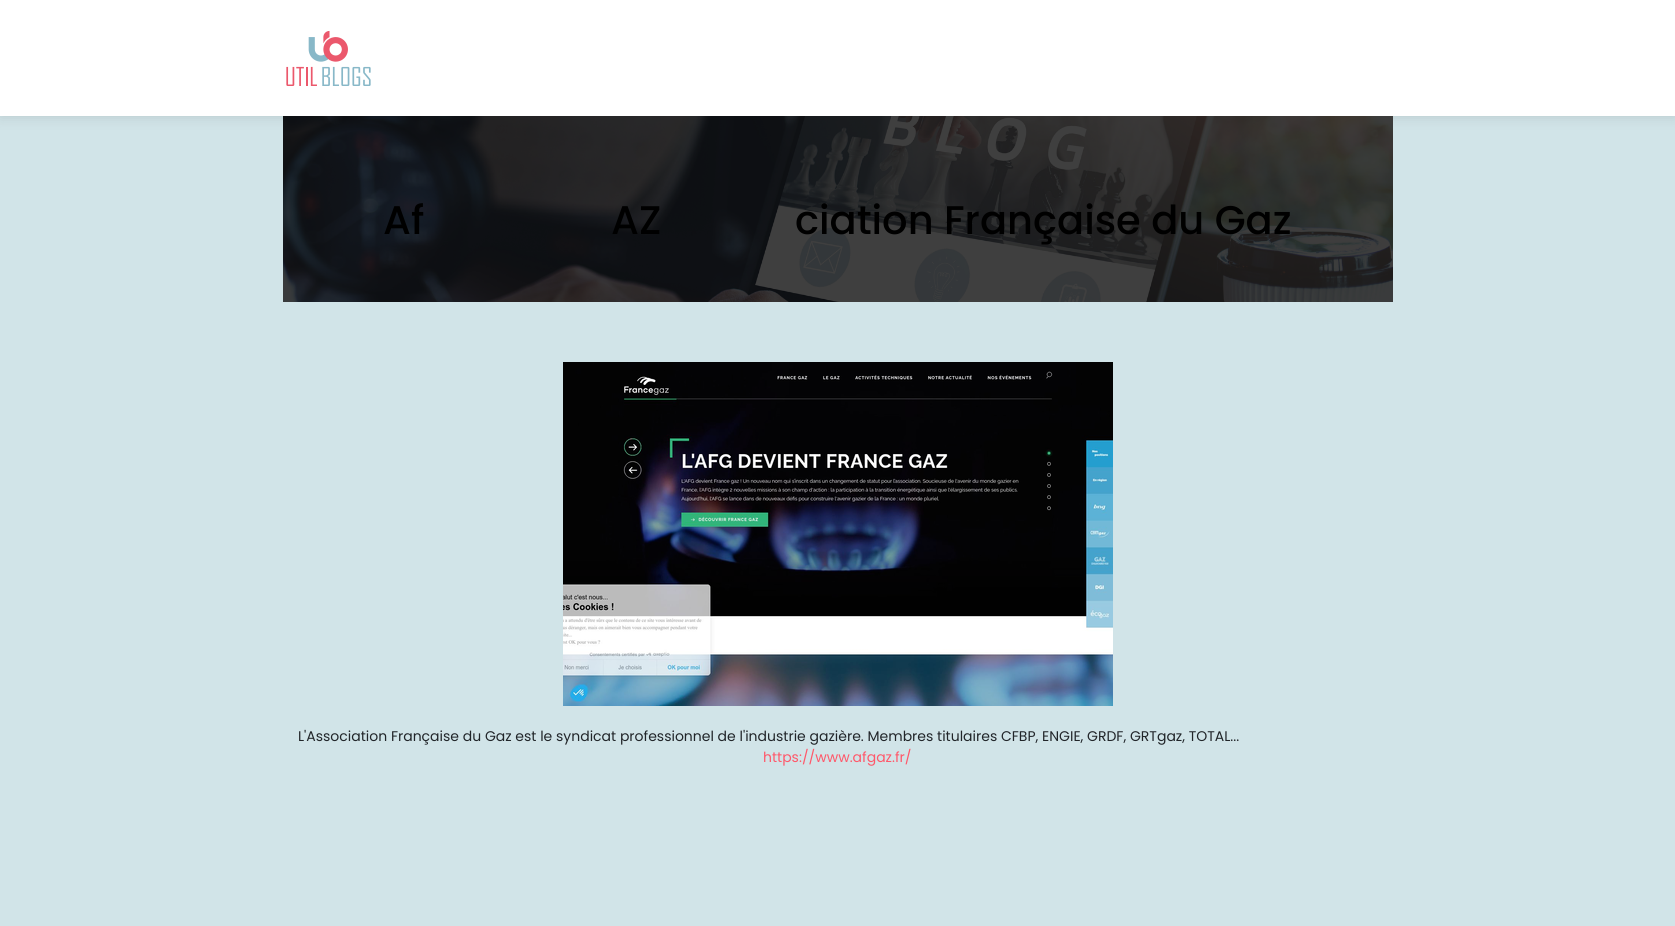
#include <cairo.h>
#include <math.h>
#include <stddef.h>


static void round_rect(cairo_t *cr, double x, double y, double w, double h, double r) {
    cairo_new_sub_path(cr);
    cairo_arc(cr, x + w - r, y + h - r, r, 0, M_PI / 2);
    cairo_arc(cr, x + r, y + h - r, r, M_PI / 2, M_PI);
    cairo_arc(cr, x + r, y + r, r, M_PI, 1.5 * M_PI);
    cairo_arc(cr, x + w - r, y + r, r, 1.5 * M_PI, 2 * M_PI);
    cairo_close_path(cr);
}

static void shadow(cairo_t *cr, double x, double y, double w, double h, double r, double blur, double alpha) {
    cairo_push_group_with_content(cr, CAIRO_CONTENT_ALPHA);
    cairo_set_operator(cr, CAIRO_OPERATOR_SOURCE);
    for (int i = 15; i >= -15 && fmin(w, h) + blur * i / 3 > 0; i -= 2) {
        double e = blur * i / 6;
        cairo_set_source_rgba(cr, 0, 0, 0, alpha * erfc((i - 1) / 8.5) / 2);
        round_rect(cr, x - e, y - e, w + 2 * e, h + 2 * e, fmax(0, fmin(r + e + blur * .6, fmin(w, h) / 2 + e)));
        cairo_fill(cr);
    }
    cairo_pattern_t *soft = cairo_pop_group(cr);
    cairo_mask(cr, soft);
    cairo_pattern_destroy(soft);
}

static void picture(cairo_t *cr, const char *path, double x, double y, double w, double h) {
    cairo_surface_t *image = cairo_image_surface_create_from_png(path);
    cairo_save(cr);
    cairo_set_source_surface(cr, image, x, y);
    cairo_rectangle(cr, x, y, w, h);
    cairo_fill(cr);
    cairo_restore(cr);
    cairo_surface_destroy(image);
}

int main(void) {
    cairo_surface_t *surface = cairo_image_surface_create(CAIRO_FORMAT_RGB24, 1675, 926);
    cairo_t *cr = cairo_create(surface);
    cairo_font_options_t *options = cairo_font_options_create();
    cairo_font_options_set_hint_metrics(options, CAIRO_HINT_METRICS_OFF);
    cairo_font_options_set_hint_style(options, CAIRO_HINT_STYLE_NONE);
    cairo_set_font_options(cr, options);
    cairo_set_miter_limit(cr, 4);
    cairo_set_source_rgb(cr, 0.82, 0.894, 0.91);
    cairo_paint(cr);
    cairo_set_source_rgb(cr, 0, 0, 0);
    shadow(cr, 0, 2, 1675, 116, 0, 6.5, 0.1);
    cairo_set_source_rgb(cr, 1, 1, 1);
    cairo_rectangle(cr, 0, 0, 1675, 116);
    cairo_fill(cr);
    picture(cr, "img1.png", 286, 30, 85, 56);
    picture(cr, "img2.png", 283, 116, 1110, 186);
    cairo_select_font_face(cr, "Poppins Medium", CAIRO_FONT_SLANT_NORMAL, CAIRO_FONT_WEIGHT_NORMAL);
    cairo_set_font_size(cr, 40);
    cairo_set_source_rgb(cr, 0, 0, 0);
    cairo_move_to(cr, 383, 234);
    cairo_show_text(cr, "Af");
    cairo_move_to(cr, 611, 234);
    cairo_show_text(cr, "AZ");
    cairo_move_to(cr, 795, 234);
    cairo_show_text(cr, "ciation Française du Gaz");
    picture(cr, "img3.png", 563, 362, 550, 344);
    cairo_select_font_face(cr, "Poppins", CAIRO_FONT_SLANT_NORMAL, CAIRO_FONT_WEIGHT_NORMAL);
    cairo_set_font_size(cr, 14);
    cairo_set_source_rgb(cr, 0.129, 0.145, 0.161);
    cairo_move_to(cr, 298, 741);
    cairo_show_text(cr, "L'Association Française du Gaz est le syndicat professionnel de l'industrie gazière. Membres titulaires CFBP, ENGIE, GRDF, GRTgaz, TOTAL...");
    cairo_set_source_rgb(cr, 1, 0.345, 0.416);
    cairo_move_to(cr, 763, 762);
    cairo_show_text(cr, "https://www.afgaz.fr/");
    cairo_surface_write_to_png(surface, "page.png");
    cairo_font_options_destroy(options);
    cairo_destroy(cr);
    cairo_surface_destroy(surface);
    return 0;
}
